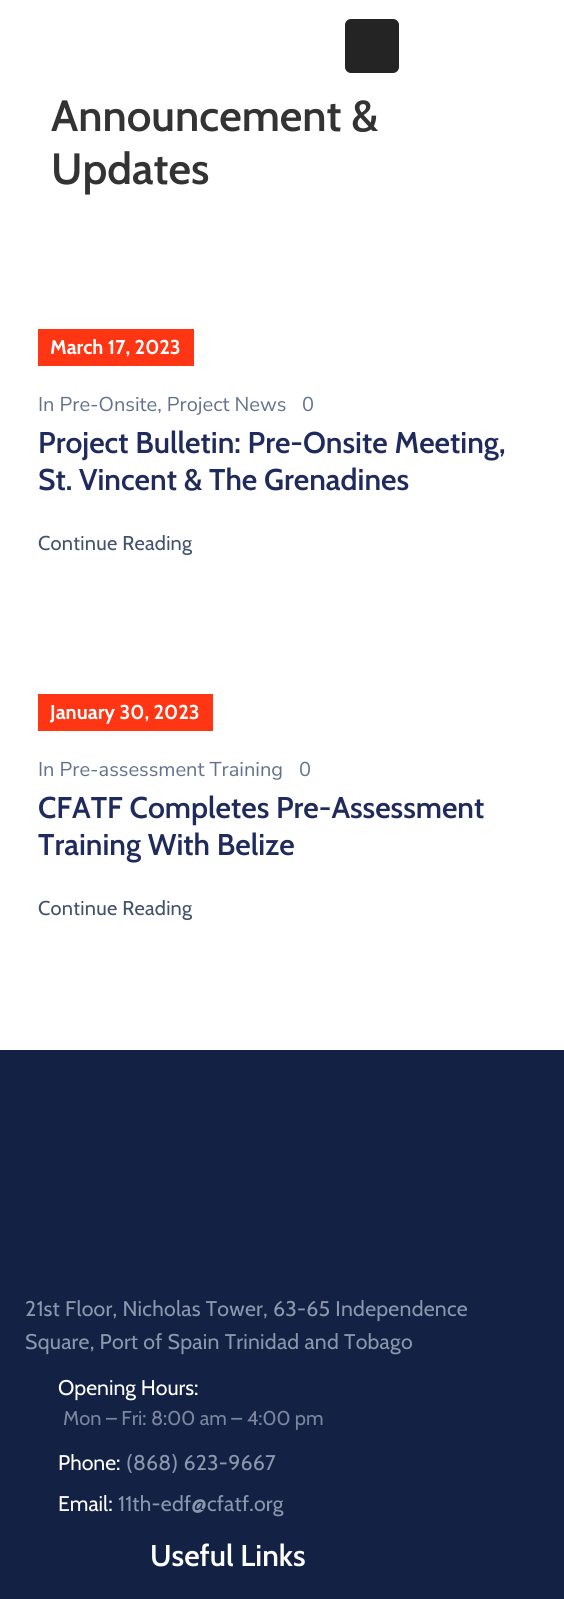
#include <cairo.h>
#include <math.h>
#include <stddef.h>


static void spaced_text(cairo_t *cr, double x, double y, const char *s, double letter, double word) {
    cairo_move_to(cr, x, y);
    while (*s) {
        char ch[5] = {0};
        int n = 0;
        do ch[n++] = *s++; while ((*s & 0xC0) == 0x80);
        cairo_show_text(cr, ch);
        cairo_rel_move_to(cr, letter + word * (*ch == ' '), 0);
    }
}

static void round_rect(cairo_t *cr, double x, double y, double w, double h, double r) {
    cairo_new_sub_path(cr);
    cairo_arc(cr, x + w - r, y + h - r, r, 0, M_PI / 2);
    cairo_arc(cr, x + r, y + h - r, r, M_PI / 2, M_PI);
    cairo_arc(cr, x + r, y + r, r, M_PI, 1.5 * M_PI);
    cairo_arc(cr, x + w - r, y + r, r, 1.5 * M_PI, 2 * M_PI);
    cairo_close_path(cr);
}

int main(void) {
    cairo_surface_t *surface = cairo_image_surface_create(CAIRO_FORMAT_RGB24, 564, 1599);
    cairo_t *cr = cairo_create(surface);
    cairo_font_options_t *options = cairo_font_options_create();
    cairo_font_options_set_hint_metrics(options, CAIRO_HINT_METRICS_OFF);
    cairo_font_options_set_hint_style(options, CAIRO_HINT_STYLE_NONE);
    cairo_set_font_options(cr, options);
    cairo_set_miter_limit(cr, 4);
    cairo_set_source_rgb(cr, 1, 1, 1);
    cairo_paint(cr);
    cairo_set_source_rgb(cr, 0.141, 0.141, 0.141);
    round_rect(cr, 345, 19, 54, 54, 6);
    cairo_fill(cr);
    cairo_select_font_face(cr, "Cabin SemiBold", CAIRO_FONT_SLANT_NORMAL, CAIRO_FONT_WEIGHT_NORMAL);
    cairo_set_font_size(cr, 43.75);
    cairo_set_source_rgb(cr, 0.2, 0.2, 0.2);
    cairo_move_to(cr, 51, 131);
    cairo_show_text(cr, "Announcement &");
    cairo_move_to(cr, 51, 184);
    cairo_show_text(cr, "Updates");
    cairo_set_source_rgb(cr, 1, 0.208, 0.078);
    cairo_rectangle(cr, 38, 329, 156, 37);
    cairo_fill(cr);
    cairo_select_font_face(cr, "Cabin", CAIRO_FONT_SLANT_NORMAL, CAIRO_FONT_WEIGHT_BOLD);
    cairo_set_font_size(cr, 20);
    cairo_set_source_rgb(cr, 1, 1, 1);
    cairo_move_to(cr, 50, 354);
    cairo_show_text(cr, "March 17, 2023");
    cairo_select_font_face(cr, "Nunito Sans", CAIRO_FONT_SLANT_NORMAL, CAIRO_FONT_WEIGHT_NORMAL);
    cairo_set_source_rgb(cr, 0.384, 0.443, 0.553);
    cairo_move_to(cr, 38, 411);
    cairo_show_text(cr, "In Pre-Onsite‚ Project News");
    cairo_move_to(cr, 302, 411);
    cairo_show_text(cr, "0");
    cairo_select_font_face(cr, "Cabin SemiBold", CAIRO_FONT_SLANT_NORMAL, CAIRO_FONT_WEIGHT_NORMAL);
    cairo_set_font_size(cr, 30);
    cairo_set_source_rgb(cr, 0.125, 0.169, 0.365);
    cairo_move_to(cr, 38, 453);
    cairo_show_text(cr, "Project Bulletin: Pre-Onsite Meeting,");
    cairo_move_to(cr, 38, 490);
    cairo_show_text(cr, "St. Vincent & The Grenadines");
    cairo_select_font_face(cr, "Cabin", CAIRO_FONT_SLANT_NORMAL, CAIRO_FONT_WEIGHT_NORMAL);
    cairo_set_font_size(cr, 20);
    cairo_set_source_rgb(cr, 0.259, 0.318, 0.427);
    spaced_text(cr, 38, 550, "Continue Reading", 0.25, 0);
    cairo_set_source_rgb(cr, 1, 0.208, 0.078);
    cairo_rectangle(cr, 38, 694, 175, 37);
    cairo_fill(cr);
    cairo_select_font_face(cr, "Cabin", CAIRO_FONT_SLANT_NORMAL, CAIRO_FONT_WEIGHT_BOLD);
    cairo_set_source_rgb(cr, 1, 1, 1);
    cairo_move_to(cr, 50, 719);
    cairo_show_text(cr, "January 30, 2023");
    cairo_select_font_face(cr, "Nunito Sans", CAIRO_FONT_SLANT_NORMAL, CAIRO_FONT_WEIGHT_NORMAL);
    cairo_set_source_rgb(cr, 0.384, 0.443, 0.553);
    cairo_move_to(cr, 38, 776);
    cairo_show_text(cr, "In Pre-assessment Training");
    cairo_move_to(cr, 299, 776);
    cairo_show_text(cr, "0");
    cairo_select_font_face(cr, "Cabin SemiBold", CAIRO_FONT_SLANT_NORMAL, CAIRO_FONT_WEIGHT_NORMAL);
    cairo_set_font_size(cr, 30);
    cairo_set_source_rgb(cr, 0.125, 0.169, 0.365);
    cairo_move_to(cr, 38, 818);
    cairo_show_text(cr, "CFATF Completes Pre-Assessment");
    cairo_move_to(cr, 38, 855);
    cairo_show_text(cr, "Training With Belize");
    cairo_select_font_face(cr, "Cabin", CAIRO_FONT_SLANT_NORMAL, CAIRO_FONT_WEIGHT_NORMAL);
    cairo_set_font_size(cr, 20);
    cairo_set_source_rgb(cr, 0.259, 0.318, 0.427);
    spaced_text(cr, 38, 915, "Continue Reading", 0.25, 0);
    cairo_set_source_rgb(cr, 0.075, 0.133, 0.267);
    cairo_rectangle(cr, 0, 1050, 564, 549);
    cairo_fill(cr);
    cairo_set_font_size(cr, 21.25);
    cairo_set_source_rgb(cr, 0.549, 0.588, 0.675);
    spaced_text(cr, 25, 1316, "21st Floor, Nicholas Tower, 63-65 Independence", 0.25, 0);
    spaced_text(cr, 25, 1349, "Square, Port of Spain Trinidad and Tobago", 0.25, 0);
    cairo_set_source_rgb(cr, 1, 1, 1);
    cairo_move_to(cr, 58, 1395);
    cairo_show_text(cr, "Opening Hours:");
    cairo_set_font_size(cr, 20);
    cairo_set_source_rgb(cr, 0.482, 0.522, 0.616);
    cairo_move_to(cr, 63, 1425);
    cairo_show_text(cr, "Mon – Fri: 8:00 am – 4:00 pm");
    cairo_set_font_size(cr, 21.25);
    cairo_set_source_rgb(cr, 1, 1, 1);
    cairo_move_to(cr, 58, 1470);
    cairo_show_text(cr, "Phone:");
    cairo_set_source_rgb(cr, 0.549, 0.588, 0.675);
    spaced_text(cr, 126, 1470, "(868) 623-9667", 0.25, 0);
    cairo_set_source_rgb(cr, 1, 1, 1);
    cairo_move_to(cr, 58, 1511);
    cairo_show_text(cr, "Email:");
    cairo_set_source_rgb(cr, 0.549, 0.588, 0.675);
    spaced_text(cr, 118, 1511, "11th-edf@cfatf.org", 0.25, 0);
    cairo_select_font_face(cr, "Cabin SemiBold", CAIRO_FONT_SLANT_NORMAL, CAIRO_FONT_WEIGHT_NORMAL);
    cairo_set_font_size(cr, 30);
    cairo_set_source_rgb(cr, 1, 1, 1);
    cairo_move_to(cr, 150, 1566);
    cairo_show_text(cr, "Useful Links");
    cairo_surface_write_to_png(surface, "page.png");
    cairo_font_options_destroy(options);
    cairo_destroy(cr);
    cairo_surface_destroy(surface);
    return 0;
}
